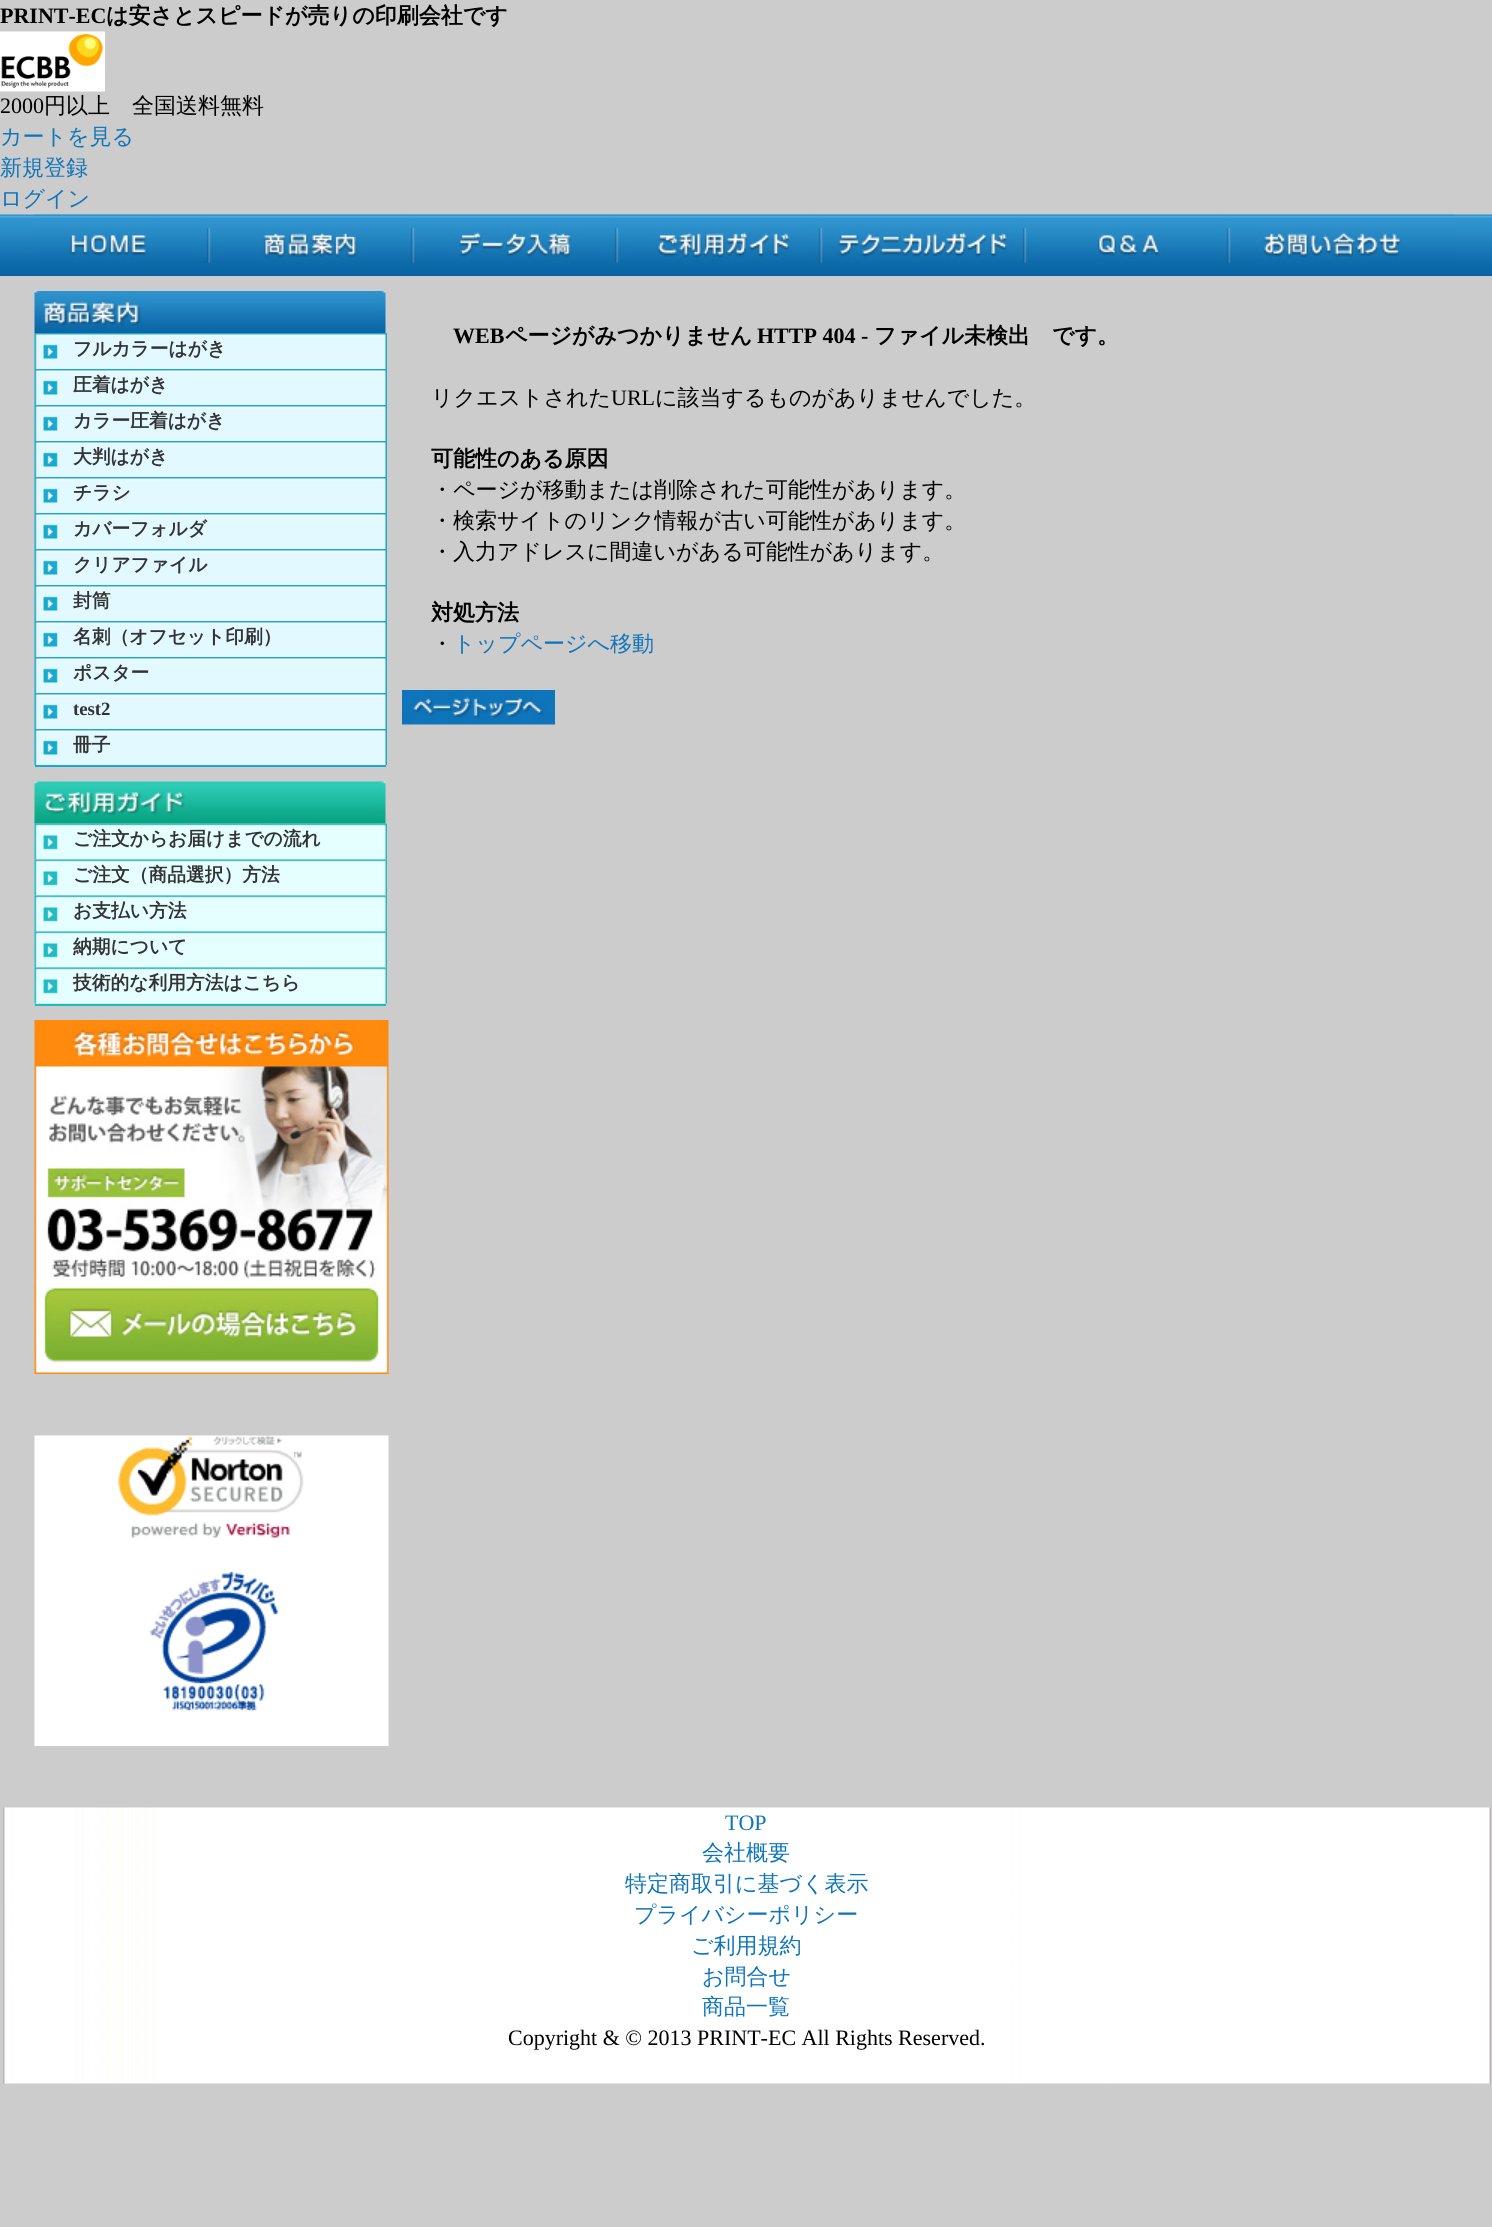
#include <cairo.h>
#include <math.h>
#include <stddef.h>


static void picture(cairo_t *cr, const char *path, double x, double y, double w, double h) {
    cairo_surface_t *image = cairo_image_surface_create_from_png(path);
    cairo_save(cr);
    cairo_set_source_surface(cr, image, x, y);
    cairo_rectangle(cr, x, y, w, h);
    cairo_fill(cr);
    cairo_restore(cr);
    cairo_surface_destroy(image);
}

int main(void) {
    cairo_surface_t *surface = cairo_image_surface_create(CAIRO_FORMAT_RGB24, 1492, 2227);
    cairo_t *cr = cairo_create(surface);
    cairo_font_options_t *options = cairo_font_options_create();
    cairo_font_options_set_hint_metrics(options, CAIRO_HINT_METRICS_OFF);
    cairo_font_options_set_hint_style(options, CAIRO_HINT_STYLE_NONE);
    cairo_set_font_options(cr, options);
    cairo_set_miter_limit(cr, 4);
    cairo_set_source_rgb(cr, 0.8, 0.8, 0.8);
    cairo_paint(cr);
    cairo_select_font_face(cr, "Liberation Serif", CAIRO_FONT_SLANT_NORMAL, CAIRO_FONT_WEIGHT_BOLD);
    cairo_set_font_size(cr, 22);
    cairo_set_source_rgb(cr, 0, 0, 0);
    cairo_move_to(cr, 0, 23);
    cairo_show_text(cr, "PRINT-EC");
    cairo_select_font_face(cr, "WenQuanYi Zen Hei", CAIRO_FONT_SLANT_NORMAL, CAIRO_FONT_WEIGHT_BOLD);
    cairo_move_to(cr, 106, 23);
    cairo_show_text(cr, "は安さとスピードが売りの印刷会社です");
    picture(cr, "img1.png", 0, 31, 105, 61);
    cairo_select_font_face(cr, "Liberation Serif", CAIRO_FONT_SLANT_NORMAL, CAIRO_FONT_WEIGHT_NORMAL);
    cairo_move_to(cr, 0, 113);
    cairo_show_text(cr, "2000");
    cairo_select_font_face(cr, "WenQuanYi Zen Hei Medium", CAIRO_FONT_SLANT_NORMAL, CAIRO_FONT_WEIGHT_NORMAL);
    cairo_move_to(cr, 44, 113);
    cairo_show_text(cr, "円以上　全国送料無料");
    cairo_set_source_rgb(cr, 0.059, 0.455, 0.729);
    cairo_move_to(cr, 0, 144);
    cairo_show_text(cr, "カートを見る");
    cairo_move_to(cr, 0, 175);
    cairo_show_text(cr, "新規登録");
    cairo_move_to(cr, 0, 206);
    cairo_show_text(cr, "ログイン");
    picture(cr, "img2.png", 0, 214, 1492, 62);
    picture(cr, "img3.png", 34, 214, 175, 49);
    picture(cr, "img4.png", 208, 214, 205, 49);
    picture(cr, "img5.png", 412, 214, 205, 49);
    picture(cr, "img6.png", 616, 214, 205, 49);
    picture(cr, "img7.png", 820, 214, 205, 49);
    picture(cr, "img8.png", 1024, 214, 205, 49);
    picture(cr, "img9.png", 1228, 214, 227, 49);
    picture(cr, "img10.png", 34, 291, 352, 42);
    cairo_set_source_rgb(cr, 0.094, 0.663, 0.804);
    cairo_rectangle(cr, 35, 765, 351, 2);
    cairo_fill(cr);
    picture(cr, "img11.png", 34, 333, 353, 36);
    cairo_select_font_face(cr, "WenQuanYi Zen Hei", CAIRO_FONT_SLANT_NORMAL, CAIRO_FONT_WEIGHT_BOLD);
    cairo_set_font_size(cr, 18.75);
    cairo_set_source_rgb(cr, 0.2, 0.2, 0.2);
    cairo_move_to(cr, 73, 355);
    cairo_show_text(cr, "フルカラーはがき");
    picture(cr, "img11.png", 34, 369, 353, 36);
    cairo_move_to(cr, 73, 391);
    cairo_show_text(cr, "圧着はがき");
    picture(cr, "img11.png", 34, 405, 353, 36);
    cairo_move_to(cr, 73, 427);
    cairo_show_text(cr, "カラー圧着はがき");
    picture(cr, "img11.png", 34, 441, 353, 36);
    cairo_move_to(cr, 73, 463);
    cairo_show_text(cr, "大判はがき");
    picture(cr, "img11.png", 34, 477, 353, 36);
    cairo_move_to(cr, 73, 499);
    cairo_show_text(cr, "チラシ");
    picture(cr, "img11.png", 34, 513, 353, 36);
    cairo_move_to(cr, 73, 535);
    cairo_show_text(cr, "カバーフォルダ");
    picture(cr, "img11.png", 34, 549, 353, 36);
    cairo_move_to(cr, 73, 571);
    cairo_show_text(cr, "クリアファイル");
    picture(cr, "img11.png", 34, 585, 353, 36);
    cairo_move_to(cr, 73, 607);
    cairo_show_text(cr, "封筒");
    picture(cr, "img11.png", 34, 621, 353, 36);
    cairo_move_to(cr, 73, 643);
    cairo_show_text(cr, "名刺（オフセット印刷）");
    picture(cr, "img11.png", 34, 657, 353, 36);
    cairo_move_to(cr, 73, 679);
    cairo_show_text(cr, "ポスター");
    picture(cr, "img11.png", 34, 693, 353, 36);
    cairo_select_font_face(cr, "Liberation Serif", CAIRO_FONT_SLANT_NORMAL, CAIRO_FONT_WEIGHT_BOLD);
    cairo_move_to(cr, 73, 715);
    cairo_show_text(cr, "test2");
    picture(cr, "img11.png", 34, 729, 353, 36);
    cairo_select_font_face(cr, "WenQuanYi Zen Hei", CAIRO_FONT_SLANT_NORMAL, CAIRO_FONT_WEIGHT_BOLD);
    cairo_move_to(cr, 73, 751);
    cairo_show_text(cr, "冊子");
    picture(cr, "img12.png", 34, 781, 352, 43);
    cairo_set_source_rgb(cr, 0.125, 0.737, 0.761);
    cairo_rectangle(cr, 35, 1004, 351, 2);
    cairo_fill(cr);
    picture(cr, "img13.png", 34, 823, 353, 37);
    cairo_set_source_rgb(cr, 0.2, 0.2, 0.2);
    cairo_move_to(cr, 73, 845);
    cairo_show_text(cr, "ご注文からお届けまでの流れ");
    picture(cr, "img14.png", 34, 859, 353, 37);
    cairo_move_to(cr, 73, 881);
    cairo_show_text(cr, "ご注文（商品選択）方法");
    picture(cr, "img14.png", 34, 895, 353, 37);
    cairo_move_to(cr, 73, 917);
    cairo_show_text(cr, "お支払い方法");
    picture(cr, "img14.png", 34, 931, 353, 37);
    cairo_move_to(cr, 73, 953);
    cairo_show_text(cr, "納期について");
    picture(cr, "img14.png", 34, 967, 353, 37);
    cairo_move_to(cr, 73, 989);
    cairo_show_text(cr, "技術的な利用方法はこちら");
    picture(cr, "img15.png", 34, 1020, 355, 354);
    picture(cr, "img16.png", 34, 1435, 355, 311);
    cairo_select_font_face(cr, "Liberation Serif", CAIRO_FONT_SLANT_NORMAL, CAIRO_FONT_WEIGHT_BOLD);
    cairo_set_font_size(cr, 22);
    cairo_set_source_rgb(cr, 0, 0, 0);
    cairo_move_to(cr, 453, 343);
    cairo_show_text(cr, "WEB");
    cairo_select_font_face(cr, "WenQuanYi Zen Hei", CAIRO_FONT_SLANT_NORMAL, CAIRO_FONT_WEIGHT_BOLD);
    cairo_move_to(cr, 505, 343);
    cairo_show_text(cr, "ページがみつかりません");
    cairo_select_font_face(cr, "Liberation Serif", CAIRO_FONT_SLANT_NORMAL, CAIRO_FONT_WEIGHT_BOLD);
    cairo_move_to(cr, 757, 343);
    cairo_show_text(cr, "HTTP 404 -");
    cairo_select_font_face(cr, "WenQuanYi Zen Hei", CAIRO_FONT_SLANT_NORMAL, CAIRO_FONT_WEIGHT_BOLD);
    cairo_move_to(cr, 874, 343);
    cairo_show_text(cr, "ファイル未検出　です。");
    cairo_select_font_face(cr, "WenQuanYi Zen Hei Medium", CAIRO_FONT_SLANT_NORMAL, CAIRO_FONT_WEIGHT_NORMAL);
    cairo_move_to(cr, 431, 405);
    cairo_show_text(cr, "リクエストされた");
    cairo_select_font_face(cr, "Liberation Serif", CAIRO_FONT_SLANT_NORMAL, CAIRO_FONT_WEIGHT_NORMAL);
    cairo_move_to(cr, 611, 405);
    cairo_show_text(cr, "URL");
    cairo_select_font_face(cr, "WenQuanYi Zen Hei Medium", CAIRO_FONT_SLANT_NORMAL, CAIRO_FONT_WEIGHT_NORMAL);
    cairo_move_to(cr, 655, 405);
    cairo_show_text(cr, "に該当するものがありませんでした。");
    cairo_select_font_face(cr, "WenQuanYi Zen Hei", CAIRO_FONT_SLANT_NORMAL, CAIRO_FONT_WEIGHT_BOLD);
    cairo_move_to(cr, 431, 466);
    cairo_show_text(cr, "可能性のある原因");
    cairo_select_font_face(cr, "WenQuanYi Zen Hei Medium", CAIRO_FONT_SLANT_NORMAL, CAIRO_FONT_WEIGHT_NORMAL);
    cairo_move_to(cr, 431, 497);
    cairo_show_text(cr, "・ページが移動または削除された可能性があります。");
    cairo_move_to(cr, 431, 528);
    cairo_show_text(cr, "・検索サイトのリンク情報が古い可能性があります。");
    cairo_move_to(cr, 431, 559);
    cairo_show_text(cr, "・入力アドレスに間違いがある可能性があります。");
    cairo_select_font_face(cr, "WenQuanYi Zen Hei", CAIRO_FONT_SLANT_NORMAL, CAIRO_FONT_WEIGHT_BOLD);
    cairo_move_to(cr, 431, 620);
    cairo_show_text(cr, "対処方法");
    cairo_select_font_face(cr, "WenQuanYi Zen Hei Medium", CAIRO_FONT_SLANT_NORMAL, CAIRO_FONT_WEIGHT_NORMAL);
    cairo_move_to(cr, 431, 651);
    cairo_show_text(cr, "・");
    cairo_set_source_rgb(cr, 0.059, 0.455, 0.729);
    cairo_move_to(cr, 453, 651);
    cairo_show_text(cr, "トップページへ移動");
    picture(cr, "img17.png", 402, 690, 153, 35);
    picture(cr, "img18.png", 3, 1807, 1488, 277);
    cairo_select_font_face(cr, "Liberation Serif", CAIRO_FONT_SLANT_NORMAL, CAIRO_FONT_WEIGHT_NORMAL);
    cairo_move_to(cr, 725, 1830);
    cairo_show_text(cr, "TOP");
    cairo_select_font_face(cr, "WenQuanYi Zen Hei Medium", CAIRO_FONT_SLANT_NORMAL, CAIRO_FONT_WEIGHT_NORMAL);
    cairo_move_to(cr, 702, 1860);
    cairo_show_text(cr, "会社概要");
    cairo_move_to(cr, 625, 1891);
    cairo_show_text(cr, "特定商取引に基づく表示");
    cairo_move_to(cr, 634, 1922);
    cairo_show_text(cr, "プライバシーポリシー");
    cairo_move_to(cr, 691, 1953);
    cairo_show_text(cr, "ご利用規約");
    cairo_move_to(cr, 702, 1984);
    cairo_show_text(cr, "お問合せ");
    cairo_move_to(cr, 702, 2014);
    cairo_show_text(cr, "商品一覧");
    cairo_select_font_face(cr, "Liberation Serif", CAIRO_FONT_SLANT_NORMAL, CAIRO_FONT_WEIGHT_NORMAL);
    cairo_set_source_rgb(cr, 0, 0, 0);
    cairo_move_to(cr, 508, 2045);
    cairo_show_text(cr, "Copyright & © 2013 PRINT-EC All Rights Reserved.");
    cairo_surface_write_to_png(surface, "page.png");
    cairo_font_options_destroy(options);
    cairo_destroy(cr);
    cairo_surface_destroy(surface);
    return 0;
}
